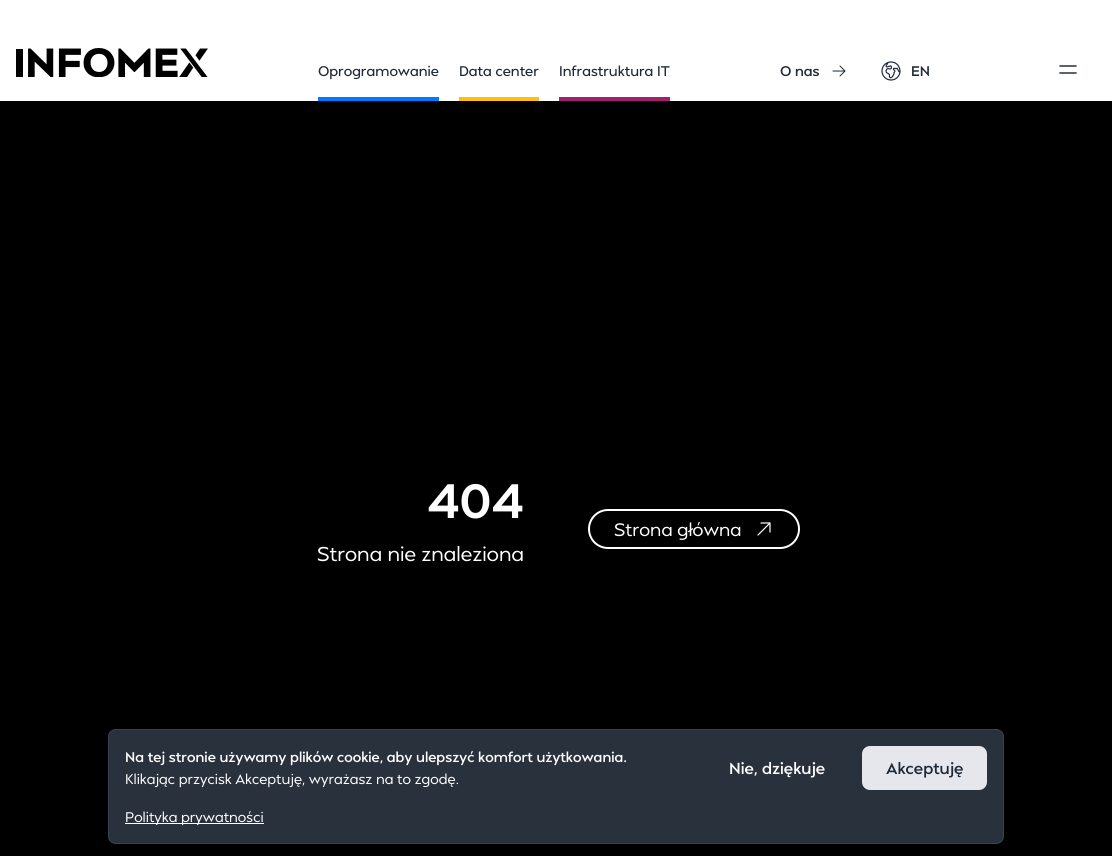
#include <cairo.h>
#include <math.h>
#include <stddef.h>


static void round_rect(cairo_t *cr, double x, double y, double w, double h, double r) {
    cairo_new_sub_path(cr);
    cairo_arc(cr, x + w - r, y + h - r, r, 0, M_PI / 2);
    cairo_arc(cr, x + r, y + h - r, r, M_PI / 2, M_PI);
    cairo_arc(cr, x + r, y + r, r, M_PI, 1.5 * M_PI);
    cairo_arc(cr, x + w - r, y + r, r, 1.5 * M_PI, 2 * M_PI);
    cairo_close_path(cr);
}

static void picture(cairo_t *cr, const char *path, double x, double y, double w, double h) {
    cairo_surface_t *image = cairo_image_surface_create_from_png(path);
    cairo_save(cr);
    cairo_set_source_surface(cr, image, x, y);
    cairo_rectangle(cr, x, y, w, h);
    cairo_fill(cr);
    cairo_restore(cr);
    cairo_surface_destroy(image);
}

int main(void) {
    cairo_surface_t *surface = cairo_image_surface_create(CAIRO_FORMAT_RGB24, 1112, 856);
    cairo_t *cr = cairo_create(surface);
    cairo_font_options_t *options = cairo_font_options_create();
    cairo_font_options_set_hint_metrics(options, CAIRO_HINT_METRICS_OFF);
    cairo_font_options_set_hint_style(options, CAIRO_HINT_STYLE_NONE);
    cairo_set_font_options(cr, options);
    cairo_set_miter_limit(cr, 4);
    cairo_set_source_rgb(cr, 1, 1, 1);
    cairo_paint(cr);
    picture(cr, "img1.png", 16, 48, 192, 29);
    cairo_select_font_face(cr, "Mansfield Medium", CAIRO_FONT_SLANT_NORMAL, CAIRO_FONT_WEIGHT_NORMAL);
    cairo_set_font_size(cr, 14);
    cairo_set_source_rgb(cr, 0.122, 0.161, 0.216);
    cairo_move_to(cr, 318, 76);
    cairo_show_text(cr, "Oprogramowanie");
    cairo_set_source_rgb(cr, 0, 0.482, 1);
    cairo_rectangle(cr, 318, 97, 121, 4);
    cairo_fill(cr);
    cairo_set_source_rgb(cr, 0.122, 0.161, 0.216);
    cairo_move_to(cr, 459, 76);
    cairo_show_text(cr, "Data center");
    cairo_set_source_rgb(cr, 1, 0.757, 0.027);
    cairo_rectangle(cr, 459, 97, 80, 4);
    cairo_fill(cr);
    cairo_set_source_rgb(cr, 0.122, 0.161, 0.216);
    cairo_move_to(cr, 559, 76);
    cairo_show_text(cr, "Infrastruktura IT");
    cairo_set_source_rgb(cr, 0.631, 0.129, 0.431);
    cairo_rectangle(cr, 559, 97, 111, 4);
    cairo_fill(cr);
    cairo_select_font_face(cr, "Mansfield SemiBold", CAIRO_FONT_SLANT_NORMAL, CAIRO_FONT_WEIGHT_NORMAL);
    cairo_set_source_rgb(cr, 0.122, 0.161, 0.216);
    cairo_move_to(cr, 780, 76);
    cairo_show_text(cr, "O nas");
    cairo_new_path(cr);
    cairo_move_to(cr, 840, 66);
    cairo_line_to(cr, 845, 71);
    cairo_move_to(cr, 845, 71);
    cairo_line_to(cr, 840, 76);
    cairo_move_to(cr, 845, 71);
    cairo_line_to(cr, 833, 71);
    cairo_set_line_width(cr, 1);
    cairo_set_line_cap(cr, CAIRO_LINE_CAP_ROUND);
    cairo_set_line_join(cr, CAIRO_LINE_JOIN_ROUND);
    cairo_stroke(cr);
    picture(cr, "img2.png", 881, 61, 20, 20);
    cairo_move_to(cr, 911, 76);
    cairo_show_text(cr, "EN");
    cairo_new_path(cr);
    cairo_move_to(cr, 1060, 66);
    cairo_line_to(cr, 1076, 66);
    cairo_move_to(cr, 1060, 73);
    cairo_line_to(cr, 1076, 73);
    cairo_set_line_width(cr, 1.5);
    cairo_stroke(cr);
    cairo_set_source_rgb(cr, 0, 0, 0);
    cairo_rectangle(cr, 0, 101, 1112, 755);
    cairo_fill(cr);
    cairo_select_font_face(cr, "Mansfield", CAIRO_FONT_SLANT_NORMAL, CAIRO_FONT_WEIGHT_BOLD);
    cairo_set_font_size(cr, 48);
    cairo_set_source_rgb(cr, 1, 1, 1);
    cairo_move_to(cr, 427, 518);
    cairo_show_text(cr, "404");
    cairo_select_font_face(cr, "Mansfield", CAIRO_FONT_SLANT_NORMAL, CAIRO_FONT_WEIGHT_NORMAL);
    cairo_set_font_size(cr, 20);
    cairo_move_to(cr, 317, 561);
    cairo_show_text(cr, "Strona nie znaleziona");
    round_rect(cr, 589, 510, 210, 38, 19);
    cairo_set_line_width(cr, 2);
    cairo_set_line_cap(cr, CAIRO_LINE_CAP_BUTT);
    cairo_set_line_join(cr, CAIRO_LINE_JOIN_MITER);
    cairo_stroke(cr);
    cairo_set_font_size(cr, 18);
    cairo_move_to(cr, 614, 536);
    cairo_show_text(cr, "Strona główna");
    cairo_new_path(cr);
    cairo_move_to(cr, 758, 535);
    cairo_line_to(cr, 770, 523);
    cairo_move_to(cr, 770, 523);
    cairo_line_to(cr, 761, 523);
    cairo_move_to(cr, 770, 523);
    cairo_line_to(cr, 770, 532);
    cairo_set_line_width(cr, 1.2);
    cairo_set_line_cap(cr, CAIRO_LINE_CAP_ROUND);
    cairo_set_line_join(cr, CAIRO_LINE_JOIN_ROUND);
    cairo_stroke(cr);
    cairo_set_source_rgb(cr, 0.161, 0.192, 0.239);
    round_rect(cr, 108, 729, 896, 115, 8);
    cairo_fill(cr);
    round_rect(cr, 108.5, 729.5, 895, 114, 7.5);
    cairo_set_source_rgba(cr, 0.294, 0.333, 0.388, 0.5);
    cairo_set_line_width(cr, 1);
    cairo_set_line_cap(cr, CAIRO_LINE_CAP_BUTT);
    cairo_set_line_join(cr, CAIRO_LINE_JOIN_MITER);
    cairo_stroke(cr);
    cairo_select_font_face(cr, "Mansfield SemiBold", CAIRO_FONT_SLANT_NORMAL, CAIRO_FONT_WEIGHT_NORMAL);
    cairo_set_font_size(cr, 14);
    cairo_set_source_rgb(cr, 1, 1, 1);
    cairo_move_to(cr, 125, 762);
    cairo_show_text(cr, "Na tej stronie używamy plików cookie, aby ulepszyć komfort użytkowania.");
    cairo_select_font_face(cr, "Mansfield", CAIRO_FONT_SLANT_NORMAL, CAIRO_FONT_WEIGHT_NORMAL);
    cairo_move_to(cr, 125, 784);
    cairo_show_text(cr, "Klikając przycisk Akceptuję, wyrażasz na to zgodę.");
    cairo_rectangle(cr, 125, 823, 139, 1);
    cairo_fill(cr);
    cairo_move_to(cr, 125, 822);
    cairo_show_text(cr, "Polityka prywatności");
    cairo_select_font_face(cr, "Mansfield SemiBold", CAIRO_FONT_SLANT_NORMAL, CAIRO_FONT_WEIGHT_NORMAL);
    cairo_set_font_size(cr, 16);
    cairo_move_to(cr, 729, 774);
    cairo_show_text(cr, "Nie, dziękuje");
    cairo_set_source_rgb(cr, 0.898, 0.906, 0.922);
    round_rect(cr, 862, 746, 125, 44, 8);
    cairo_fill(cr);
    cairo_set_source_rgb(cr, 0.122, 0.161, 0.216);
    cairo_move_to(cr, 886, 774);
    cairo_show_text(cr, "Akceptuję");
    cairo_surface_write_to_png(surface, "page.png");
    cairo_font_options_destroy(options);
    cairo_destroy(cr);
    cairo_surface_destroy(surface);
    return 0;
}
